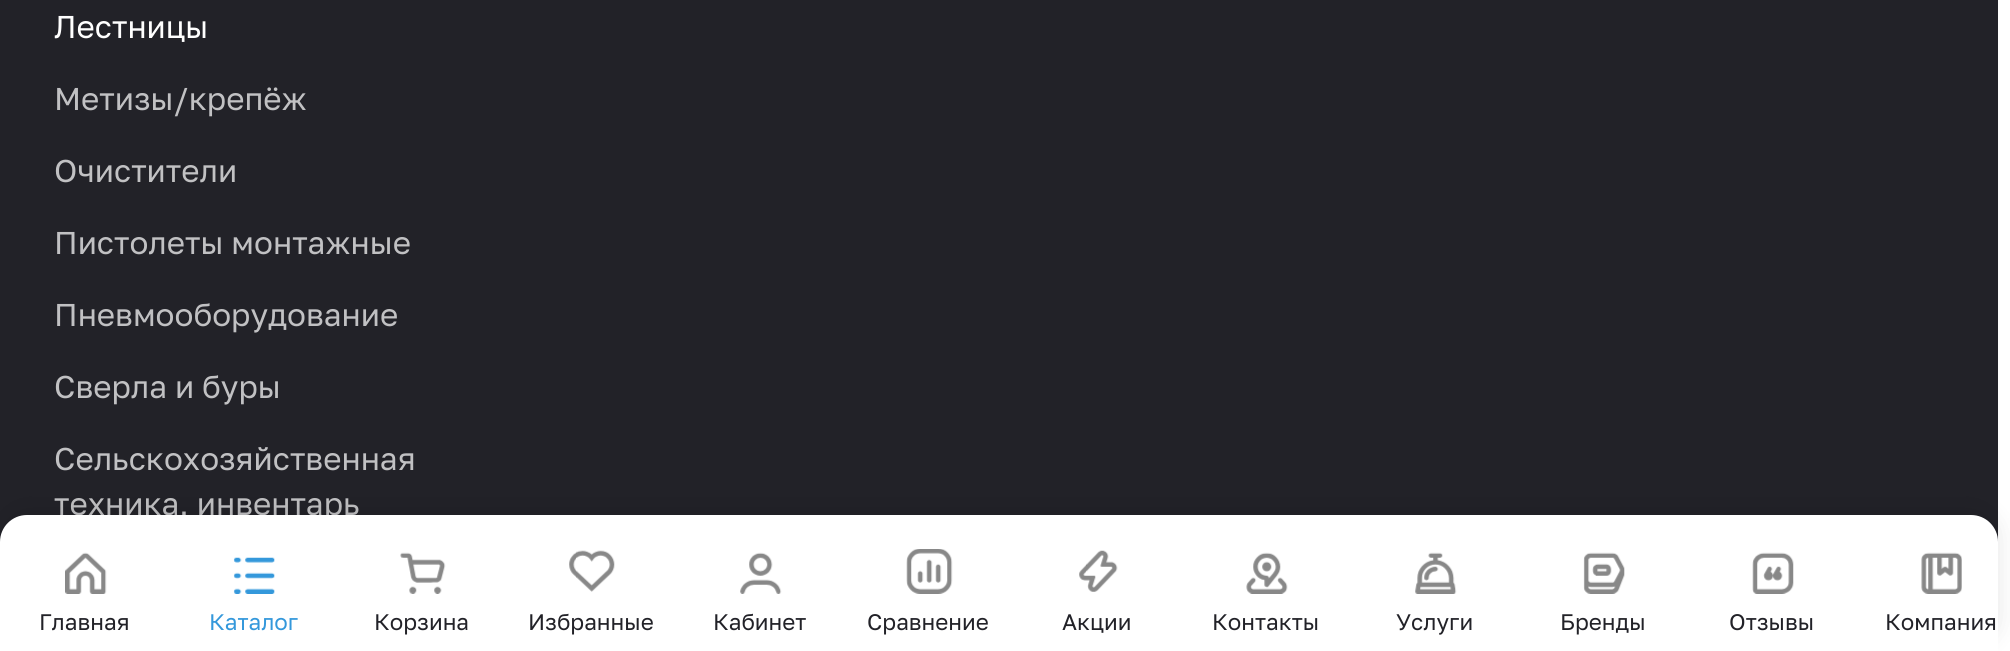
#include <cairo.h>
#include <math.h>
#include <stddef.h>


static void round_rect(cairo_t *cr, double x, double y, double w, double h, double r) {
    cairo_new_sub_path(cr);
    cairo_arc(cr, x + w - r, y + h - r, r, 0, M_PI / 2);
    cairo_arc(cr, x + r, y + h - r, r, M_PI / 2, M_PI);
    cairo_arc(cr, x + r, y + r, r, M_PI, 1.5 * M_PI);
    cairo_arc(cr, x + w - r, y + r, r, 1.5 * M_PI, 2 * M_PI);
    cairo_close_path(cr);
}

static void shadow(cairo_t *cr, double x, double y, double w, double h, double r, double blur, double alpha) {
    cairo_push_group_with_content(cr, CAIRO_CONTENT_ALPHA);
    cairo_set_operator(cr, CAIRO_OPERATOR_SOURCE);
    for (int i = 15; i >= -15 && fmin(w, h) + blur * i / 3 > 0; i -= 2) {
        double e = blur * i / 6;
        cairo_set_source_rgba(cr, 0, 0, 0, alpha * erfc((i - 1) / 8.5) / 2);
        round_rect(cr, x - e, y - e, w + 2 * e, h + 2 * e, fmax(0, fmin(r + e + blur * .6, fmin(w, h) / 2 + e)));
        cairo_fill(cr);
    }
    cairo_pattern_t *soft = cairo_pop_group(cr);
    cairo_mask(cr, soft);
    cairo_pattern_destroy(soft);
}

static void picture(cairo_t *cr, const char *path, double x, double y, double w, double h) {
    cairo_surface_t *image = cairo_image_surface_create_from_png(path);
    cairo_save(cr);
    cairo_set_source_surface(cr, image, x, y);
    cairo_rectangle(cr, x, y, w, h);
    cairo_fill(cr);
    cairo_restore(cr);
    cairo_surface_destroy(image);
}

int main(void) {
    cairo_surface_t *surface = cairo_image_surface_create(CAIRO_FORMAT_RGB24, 2010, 651);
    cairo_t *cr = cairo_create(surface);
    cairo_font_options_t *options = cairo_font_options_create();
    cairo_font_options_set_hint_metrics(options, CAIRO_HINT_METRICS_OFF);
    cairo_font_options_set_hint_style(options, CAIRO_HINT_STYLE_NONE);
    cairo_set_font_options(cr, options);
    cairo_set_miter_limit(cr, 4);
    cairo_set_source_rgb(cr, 1, 1, 1);
    cairo_paint(cr);
    cairo_set_source_rgb(cr, 0.133, 0.133, 0.157);
    cairo_rectangle(cr, 0, 0, 1998, 542);
    cairo_fill(cr);
    cairo_select_font_face(cr, "Golos Text", CAIRO_FONT_SLANT_NORMAL, CAIRO_FONT_WEIGHT_NORMAL);
    cairo_set_font_size(cr, 31.5);
    cairo_set_source_rgb(cr, 1, 1, 1);
    cairo_move_to(cr, 54, 38);
    cairo_show_text(cr, "Лестницы");
    cairo_set_source_rgb(cr, 0.757, 0.757, 0.765);
    cairo_move_to(cr, 54, 110);
    cairo_show_text(cr, "Метизы/крепёж");
    cairo_move_to(cr, 54, 182);
    cairo_show_text(cr, "Очистители");
    cairo_move_to(cr, 54, 254);
    cairo_show_text(cr, "Пистолеты монтажные");
    cairo_move_to(cr, 54, 326);
    cairo_show_text(cr, "Пневмооборудование");
    cairo_move_to(cr, 54, 398);
    cairo_show_text(cr, "Сверла и буры");
    cairo_move_to(cr, 54, 470);
    cairo_show_text(cr, "Сельскохозяйственная");
    cairo_move_to(cr, 54, 515);
    cairo_show_text(cr, "техника, инвентарь");
    cairo_set_source_rgb(cr, 0, 0, 0);
    shadow(cr, 0, 509, 1998, 137, 27, 11, 0.1);
    cairo_set_source_rgb(cr, 1, 1, 1);
    cairo_new_path(cr);
    cairo_move_to(cr, 27, 515);
    cairo_line_to(cr, 1971, 515);
    cairo_curve_to(cr, 1986, 515, 1998, 527, 1998, 542);
    cairo_line_to(cr, 1998, 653);
    cairo_line_to(cr, 0, 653);
    cairo_line_to(cr, 0, 542);
    cairo_curve_to(cr, 0, 527, 12, 515, 27, 515);
    cairo_close_path(cr);
    cairo_fill(cr);
    picture(cr, "img1.png", 65, 552, 42, 42);
    cairo_set_font_size(cr, 22.5);
    cairo_set_source_rgb(cr, 0.133, 0.133, 0.157);
    cairo_move_to(cr, 39, 630);
    cairo_show_text(cr, "Главная");
    picture(cr, "img2.png", 233, 557, 42, 37);
    cairo_set_source_rgb(cr, 0.204, 0.596, 0.859);
    cairo_move_to(cr, 209, 630);
    cairo_show_text(cr, "Каталог");
    picture(cr, "img3.png", 400, 552, 46, 42);
    cairo_set_source_rgb(cr, 0.133, 0.133, 0.157);
    cairo_move_to(cr, 374, 630);
    cairo_show_text(cr, "Корзина");
    picture(cr, "img4.png", 569, 550, 46, 42);
    cairo_move_to(cr, 528, 630);
    cairo_show_text(cr, "Избранные");
    picture(cr, "img5.png", 740, 552, 42, 42);
    cairo_move_to(cr, 713, 630);
    cairo_show_text(cr, "Кабинет");
    picture(cr, "img6.png", 906, 549, 47, 45);
    cairo_move_to(cr, 867, 630);
    cairo_show_text(cr, "Сравнение");
    picture(cr, "img7.png", 1079, 550, 39, 42);
    cairo_move_to(cr, 1062, 630);
    cairo_show_text(cr, "Акции");
    picture(cr, "img8.png", 1246, 552, 42, 42);
    cairo_move_to(cr, 1212, 630);
    cairo_show_text(cr, "Контакты");
    picture(cr, "img9.png", 1415, 552, 42, 42);
    cairo_move_to(cr, 1396, 630);
    cairo_show_text(cr, "Услуги");
    picture(cr, "img10.png", 1583, 552, 42, 42);
    cairo_move_to(cr, 1560, 630);
    cairo_show_text(cr, "Бренды");
    picture(cr, "img11.png", 1752, 552, 42, 42);
    cairo_move_to(cr, 1729, 630);
    cairo_show_text(cr, "Отзывы");
    picture(cr, "img12.png", 1921, 552, 41, 42);
    cairo_move_to(cr, 1885, 630);
    cairo_show_text(cr, "Компания");
    cairo_surface_write_to_png(surface, "page.png");
    cairo_font_options_destroy(options);
    cairo_destroy(cr);
    cairo_surface_destroy(surface);
    return 0;
}
